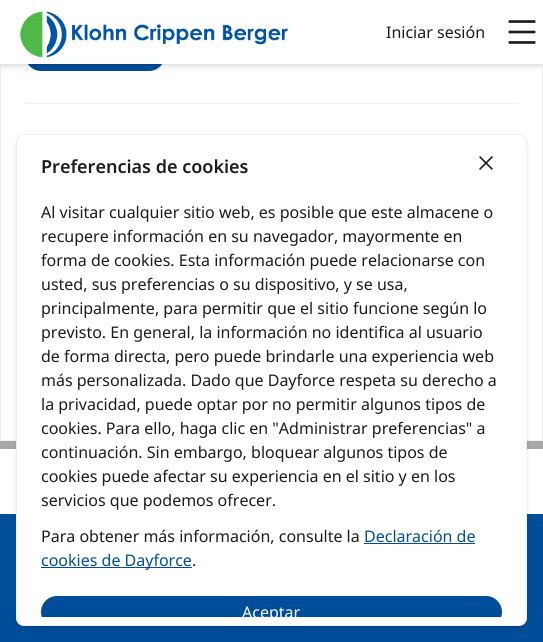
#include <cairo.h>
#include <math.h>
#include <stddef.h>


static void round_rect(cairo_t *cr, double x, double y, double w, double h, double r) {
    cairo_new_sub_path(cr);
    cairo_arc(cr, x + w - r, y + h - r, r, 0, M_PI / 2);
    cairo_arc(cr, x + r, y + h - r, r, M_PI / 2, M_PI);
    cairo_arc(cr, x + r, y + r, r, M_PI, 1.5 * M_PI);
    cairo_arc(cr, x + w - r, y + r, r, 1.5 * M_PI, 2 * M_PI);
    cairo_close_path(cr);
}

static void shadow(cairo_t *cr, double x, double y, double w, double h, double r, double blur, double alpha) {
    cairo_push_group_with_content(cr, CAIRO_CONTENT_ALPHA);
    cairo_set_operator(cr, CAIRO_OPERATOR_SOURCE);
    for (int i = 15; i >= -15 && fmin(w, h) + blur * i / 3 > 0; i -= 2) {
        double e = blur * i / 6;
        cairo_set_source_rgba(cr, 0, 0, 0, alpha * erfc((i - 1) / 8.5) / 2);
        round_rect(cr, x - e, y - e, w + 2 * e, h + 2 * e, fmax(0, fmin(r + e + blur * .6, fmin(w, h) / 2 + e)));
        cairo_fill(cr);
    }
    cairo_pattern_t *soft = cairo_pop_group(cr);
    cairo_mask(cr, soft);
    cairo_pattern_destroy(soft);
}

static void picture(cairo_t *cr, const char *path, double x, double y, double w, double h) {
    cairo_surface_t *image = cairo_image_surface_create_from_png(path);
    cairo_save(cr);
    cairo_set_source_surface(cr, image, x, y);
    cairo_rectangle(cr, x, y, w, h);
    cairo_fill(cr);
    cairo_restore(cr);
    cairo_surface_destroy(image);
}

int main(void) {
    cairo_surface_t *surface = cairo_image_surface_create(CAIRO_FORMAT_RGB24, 543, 642);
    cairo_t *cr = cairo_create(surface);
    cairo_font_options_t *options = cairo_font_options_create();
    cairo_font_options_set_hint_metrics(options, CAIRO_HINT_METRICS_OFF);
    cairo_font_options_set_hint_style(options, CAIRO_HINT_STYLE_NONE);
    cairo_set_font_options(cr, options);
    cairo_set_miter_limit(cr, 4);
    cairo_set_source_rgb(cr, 1, 1, 1);
    cairo_paint(cr);
    cairo_set_source_rgb(cr, 0.659, 0.659, 0.667);
    cairo_rectangle(cr, 0, 441, 543, 8);
    cairo_fill(cr);
    cairo_rectangle(cr, 0.5, -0.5, 542, 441);
    cairo_set_source_rgb(cr, 0.941, 0.941, 0.941);
    cairo_set_line_width(cr, 1);
    cairo_stroke(cr);
    cairo_set_source_rgb(cr, 0, 0.306, 0.604);
    round_rect(cr, 25, 39, 140, 32, 16);
    cairo_fill(cr);
    cairo_set_source_rgb(cr, 0.941, 0.941, 0.941);
    cairo_rectangle(cr, 25, 103, 493, 1);
    cairo_fill(cr);
    cairo_set_source_rgb(cr, 0, 0, 0);
    shadow(cr, 2, 4, 539, 60, 0, 2, 0.1);
    shadow(cr, 1, 5, 541, 62, 0, 3, 0.1);
    cairo_set_source_rgb(cr, 1, 1, 1);
    cairo_rectangle(cr, 0, 0, 543, 64);
    cairo_fill(cr);
    picture(cr, "img1.png", 20, 11, 268, 47);
    cairo_select_font_face(cr, "Noto Sans", CAIRO_FONT_SLANT_NORMAL, CAIRO_FONT_WEIGHT_NORMAL);
    cairo_set_font_size(cr, 16);
    cairo_set_source_rgb(cr, 0.11, 0.11, 0.118);
    cairo_move_to(cr, 386, 38);
    cairo_show_text(cr, "Iniciar sesión");
    picture(cr, "img2.png", 508, 20, 28, 24);
    cairo_set_source_rgb(cr, 0, 0.306, 0.604);
    cairo_rectangle(cr, 0, 514, 543, 128);
    cairo_fill(cr);
    cairo_set_source_rgb(cr, 0, 0, 0);
    shadow(cr, 18, 138, 507, 488, 6, 2, 0.1);
    shadow(cr, 17, 139, 509, 490, 7, 3, 0.1);
    cairo_set_source_rgb(cr, 1, 1, 1);
    round_rect(cr, 16.5, 134.5, 510, 491, 7.5);
    cairo_fill_preserve(cr);
    cairo_set_source_rgb(cr, 0.941, 0.941, 0.941);
    cairo_stroke(cr);
    cairo_select_font_face(cr, "Noto Sans SemiBold", CAIRO_FONT_SLANT_NORMAL, CAIRO_FONT_WEIGHT_NORMAL);
    cairo_set_font_size(cr, 18);
    cairo_set_source_rgb(cr, 0.11, 0.11, 0.118);
    cairo_move_to(cr, 41, 173);
    cairo_show_text(cr, "Preferencias de cookies");
    picture(cr, "img3.png", 479, 156, 14, 14);
    cairo_select_font_face(cr, "Noto Sans", CAIRO_FONT_SLANT_NORMAL, CAIRO_FONT_WEIGHT_NORMAL);
    cairo_set_font_size(cr, 16);
    cairo_move_to(cr, 41, 218);
    cairo_show_text(cr, "Al visitar cualquier sitio web, es posible que este almacene o");
    cairo_move_to(cr, 41, 242);
    cairo_show_text(cr, "recupere información en su navegador, mayormente en");
    cairo_move_to(cr, 41, 266);
    cairo_show_text(cr, "forma de cookies. Esta información puede relacionarse con");
    cairo_move_to(cr, 41, 290);
    cairo_show_text(cr, "usted, sus preferencias o su dispositivo, y se usa,");
    cairo_move_to(cr, 41, 314);
    cairo_show_text(cr, "principalmente, para permitir que el sitio funcione según lo");
    cairo_move_to(cr, 41, 338);
    cairo_show_text(cr, "previsto. En general, la información no identifica al usuario");
    cairo_move_to(cr, 41, 362);
    cairo_show_text(cr, "de forma directa, pero puede brindarle una experiencia web");
    cairo_move_to(cr, 41, 386);
    cairo_show_text(cr, "más personalizada. Dado que Dayforce respeta su derecho a");
    cairo_move_to(cr, 41, 410);
    cairo_show_text(cr, "la privacidad, puede optar por no permitir algunos tipos de");
    cairo_move_to(cr, 41, 434);
    cairo_show_text(cr, "cookies. Para ello, haga clic en \"Administrar preferencias\" a");
    cairo_move_to(cr, 41, 458);
    cairo_show_text(cr, "continuación. Sin embargo, bloquear algunos tipos de");
    cairo_move_to(cr, 41, 482);
    cairo_show_text(cr, "cookies puede afectar su experiencia en el sitio y en los");
    cairo_move_to(cr, 41, 506);
    cairo_show_text(cr, "servicios que podemos ofrecer.");
    cairo_move_to(cr, 41, 542);
    cairo_show_text(cr, "Para obtener más información, consulte la");
    cairo_set_source_rgb(cr, 0, 0.306, 0.604);
    cairo_move_to(cr, 364, 542);
    cairo_show_text(cr, "Declaración de");
    cairo_rectangle(cr, 364, 543, 111, 1);
    cairo_fill(cr);
    cairo_rectangle(cr, 41, 567, 151, 1);
    cairo_fill(cr);
    cairo_move_to(cr, 41, 566);
    cairo_show_text(cr, "cookies de Dayforce");
    cairo_set_source_rgb(cr, 0.11, 0.11, 0.118);
    cairo_move_to(cr, 192, 566);
    cairo_show_text(cr, ".");
    cairo_save(cr);
    cairo_new_path(cr);
    cairo_move_to(cr, 17, 192);
    cairo_line_to(cr, 526, 192);
    cairo_line_to(cr, 526, 607);
    cairo_curve_to(cr, 526, 612.5, 521.5, 617, 516, 617);
    cairo_line_to(cr, 27, 617);
    cairo_curve_to(cr, 21.5, 617, 17, 612.5, 17, 607);
    cairo_close_path(cr);
    cairo_clip(cr);
    cairo_set_source_rgb(cr, 0, 0.306, 0.604);
    round_rect(cr, 41, 596, 461, 32, 16);
    cairo_fill(cr);
    cairo_set_source_rgb(cr, 1, 1, 1);
    cairo_move_to(cr, 242, 618);
    cairo_show_text(cr, "Aceptar");
    cairo_restore(cr);
    cairo_surface_write_to_png(surface, "page.png");
    cairo_font_options_destroy(options);
    cairo_destroy(cr);
    cairo_surface_destroy(surface);
    return 0;
}
